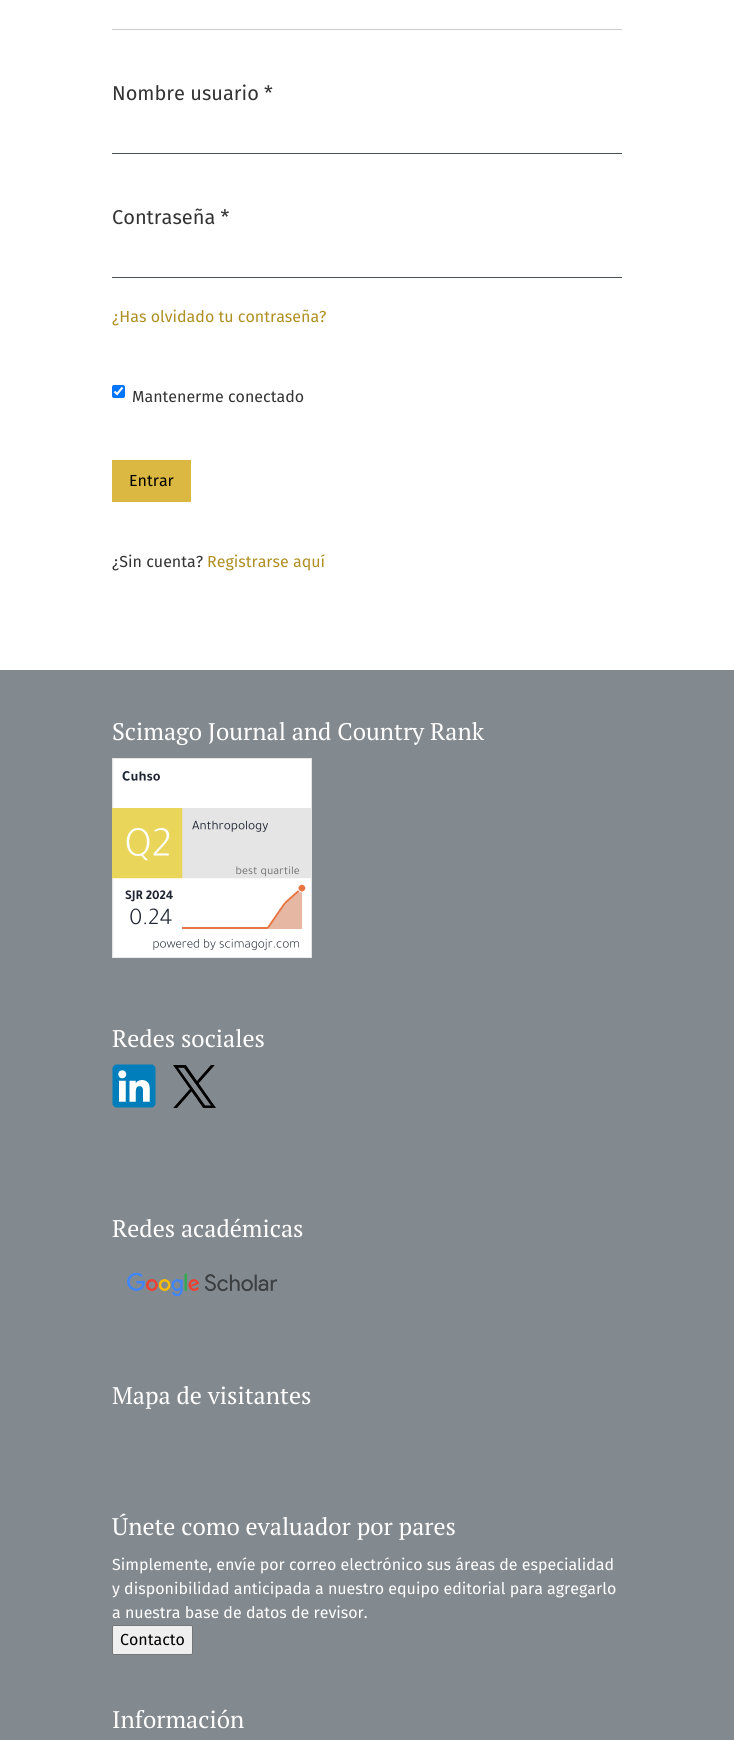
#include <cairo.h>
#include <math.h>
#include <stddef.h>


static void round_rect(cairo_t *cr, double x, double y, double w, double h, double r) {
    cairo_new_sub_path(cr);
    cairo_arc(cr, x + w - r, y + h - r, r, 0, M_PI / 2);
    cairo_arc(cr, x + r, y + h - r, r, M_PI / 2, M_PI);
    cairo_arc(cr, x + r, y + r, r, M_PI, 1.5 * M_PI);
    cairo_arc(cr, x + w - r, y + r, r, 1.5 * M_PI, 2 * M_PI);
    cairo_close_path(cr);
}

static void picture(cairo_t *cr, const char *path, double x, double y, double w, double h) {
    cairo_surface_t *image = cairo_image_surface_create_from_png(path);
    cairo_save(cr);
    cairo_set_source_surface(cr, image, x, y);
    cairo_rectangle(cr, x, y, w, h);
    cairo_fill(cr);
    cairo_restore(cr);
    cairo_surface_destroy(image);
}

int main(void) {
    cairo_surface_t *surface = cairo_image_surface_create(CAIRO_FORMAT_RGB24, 734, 1740);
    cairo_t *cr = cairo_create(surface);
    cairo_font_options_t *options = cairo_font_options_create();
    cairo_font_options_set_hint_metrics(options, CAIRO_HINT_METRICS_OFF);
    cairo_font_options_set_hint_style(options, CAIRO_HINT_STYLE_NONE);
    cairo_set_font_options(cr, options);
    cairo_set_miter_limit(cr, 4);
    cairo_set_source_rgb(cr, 1, 1, 1);
    cairo_paint(cr);
    cairo_set_source_rgb(cr, 0.8, 0.8, 0.8);
    cairo_rectangle(cr, 112, 29, 510, 1);
    cairo_fill(cr);
    cairo_select_font_face(cr, "Fira Sans", CAIRO_FONT_SLANT_NORMAL, CAIRO_FONT_WEIGHT_NORMAL);
    cairo_set_font_size(cr, 20);
    cairo_set_source_rgb(cr, 0.2, 0.2, 0.2);
    cairo_move_to(cr, 112, 100);
    cairo_show_text(cr, "Nombre usuario *");
    cairo_set_source_rgb(cr, 0.286, 0.314, 0.341);
    cairo_rectangle(cr, 112, 153, 510, 1);
    cairo_fill(cr);
    cairo_set_source_rgb(cr, 0.2, 0.2, 0.2);
    cairo_move_to(cr, 112, 224);
    cairo_show_text(cr, "Contraseña *");
    cairo_set_source_rgb(cr, 0.286, 0.314, 0.341);
    cairo_rectangle(cr, 112, 277, 510, 1);
    cairo_fill(cr);
    cairo_set_font_size(cr, 16);
    cairo_set_source_rgb(cr, 0.686, 0.561, 0.129);
    cairo_move_to(cr, 112, 322);
    cairo_show_text(cr, "¿Has olvidado tu contraseña?");
    cairo_set_source_rgb(cr, 0, 0.459, 1);
    round_rect(cr, 112, 385, 13, 13, 2);
    cairo_fill(cr);
    cairo_new_path(cr);
    cairo_move_to(cr, 114.5, 391.5);
    cairo_line_to(cr, 117, 394);
    cairo_line_to(cr, 122.5, 387.5);
    cairo_set_source_rgb(cr, 1, 1, 1);
    cairo_set_line_width(cr, 2.1);
    cairo_stroke(cr);
    cairo_set_source_rgb(cr, 0.2, 0.2, 0.2);
    cairo_move_to(cr, 132, 402);
    cairo_show_text(cr, "Mantenerme conectado");
    cairo_set_source_rgb(cr, 0.859, 0.722, 0.259);
    cairo_rectangle(cr, 112, 460, 79, 42);
    cairo_fill(cr);
    cairo_set_source_rgb(cr, 0, 0, 0);
    cairo_move_to(cr, 129, 486);
    cairo_show_text(cr, "Entrar");
    cairo_set_source_rgb(cr, 0.2, 0.2, 0.2);
    cairo_move_to(cr, 112, 567);
    cairo_show_text(cr, "¿Sin cuenta?");
    cairo_set_source_rgb(cr, 0.686, 0.561, 0.129);
    cairo_move_to(cr, 207, 567);
    cairo_show_text(cr, "Registrarse aquí");
    cairo_set_source_rgb(cr, 0.514, 0.541, 0.561);
    cairo_rectangle(cr, 0, 670, 734, 1070);
    cairo_fill(cr);
    cairo_select_font_face(cr, "PT Serif", CAIRO_FONT_SLANT_NORMAL, CAIRO_FONT_WEIGHT_NORMAL);
    cairo_set_font_size(cr, 24);
    cairo_set_source_rgb(cr, 1, 1, 1);
    cairo_move_to(cr, 112, 740);
    cairo_show_text(cr, "Scimago Journal and Country Rank");
    picture(cr, "img1.png", 112, 758, 200, 200);
    cairo_move_to(cr, 112, 1047);
    cairo_show_text(cr, "Redes sociales");
    picture(cr, "img2.png", 112, 1064, 44, 44);
    picture(cr, "img3.png", 173, 1065, 43, 43);
    cairo_move_to(cr, 112, 1237);
    cairo_show_text(cr, "Redes académicas");
    picture(cr, "img4.png", 127, 1272, 151, 25);
    cairo_move_to(cr, 112, 1404);
    cairo_show_text(cr, "Mapa de visitantes");
    cairo_move_to(cr, 112, 1535);
    cairo_show_text(cr, "Únete como evaluador por pares");
    cairo_select_font_face(cr, "Fira Sans", CAIRO_FONT_SLANT_NORMAL, CAIRO_FONT_WEIGHT_NORMAL);
    cairo_set_font_size(cr, 16);
    cairo_move_to(cr, 112, 1570);
    cairo_show_text(cr, "Simplemente, envíe por correo electrónico sus áreas de especialidad");
    cairo_move_to(cr, 112, 1594);
    cairo_show_text(cr, "y disponibilidad anticipada a nuestro equipo editorial para agregarlo");
    cairo_move_to(cr, 112, 1618);
    cairo_show_text(cr, "a nuestra base de datos de revisor.");
    cairo_set_source_rgb(cr, 0.937, 0.937, 0.937);
    round_rect(cr, 112.5, 1625.5, 80, 29, 1.5);
    cairo_fill_preserve(cr);
    cairo_set_source_rgb(cr, 0.463, 0.463, 0.463);
    cairo_set_line_width(cr, 1);
    cairo_stroke(cr);
    cairo_set_source_rgb(cr, 0, 0, 0);
    cairo_move_to(cr, 120, 1645);
    cairo_show_text(cr, "Contacto");
    cairo_select_font_face(cr, "PT Serif", CAIRO_FONT_SLANT_NORMAL, CAIRO_FONT_WEIGHT_NORMAL);
    cairo_set_font_size(cr, 24);
    cairo_set_source_rgb(cr, 1, 1, 1);
    cairo_move_to(cr, 112, 1728);
    cairo_show_text(cr, "Información");
    cairo_surface_write_to_png(surface, "page.png");
    cairo_font_options_destroy(options);
    cairo_destroy(cr);
    cairo_surface_destroy(surface);
    return 0;
}
